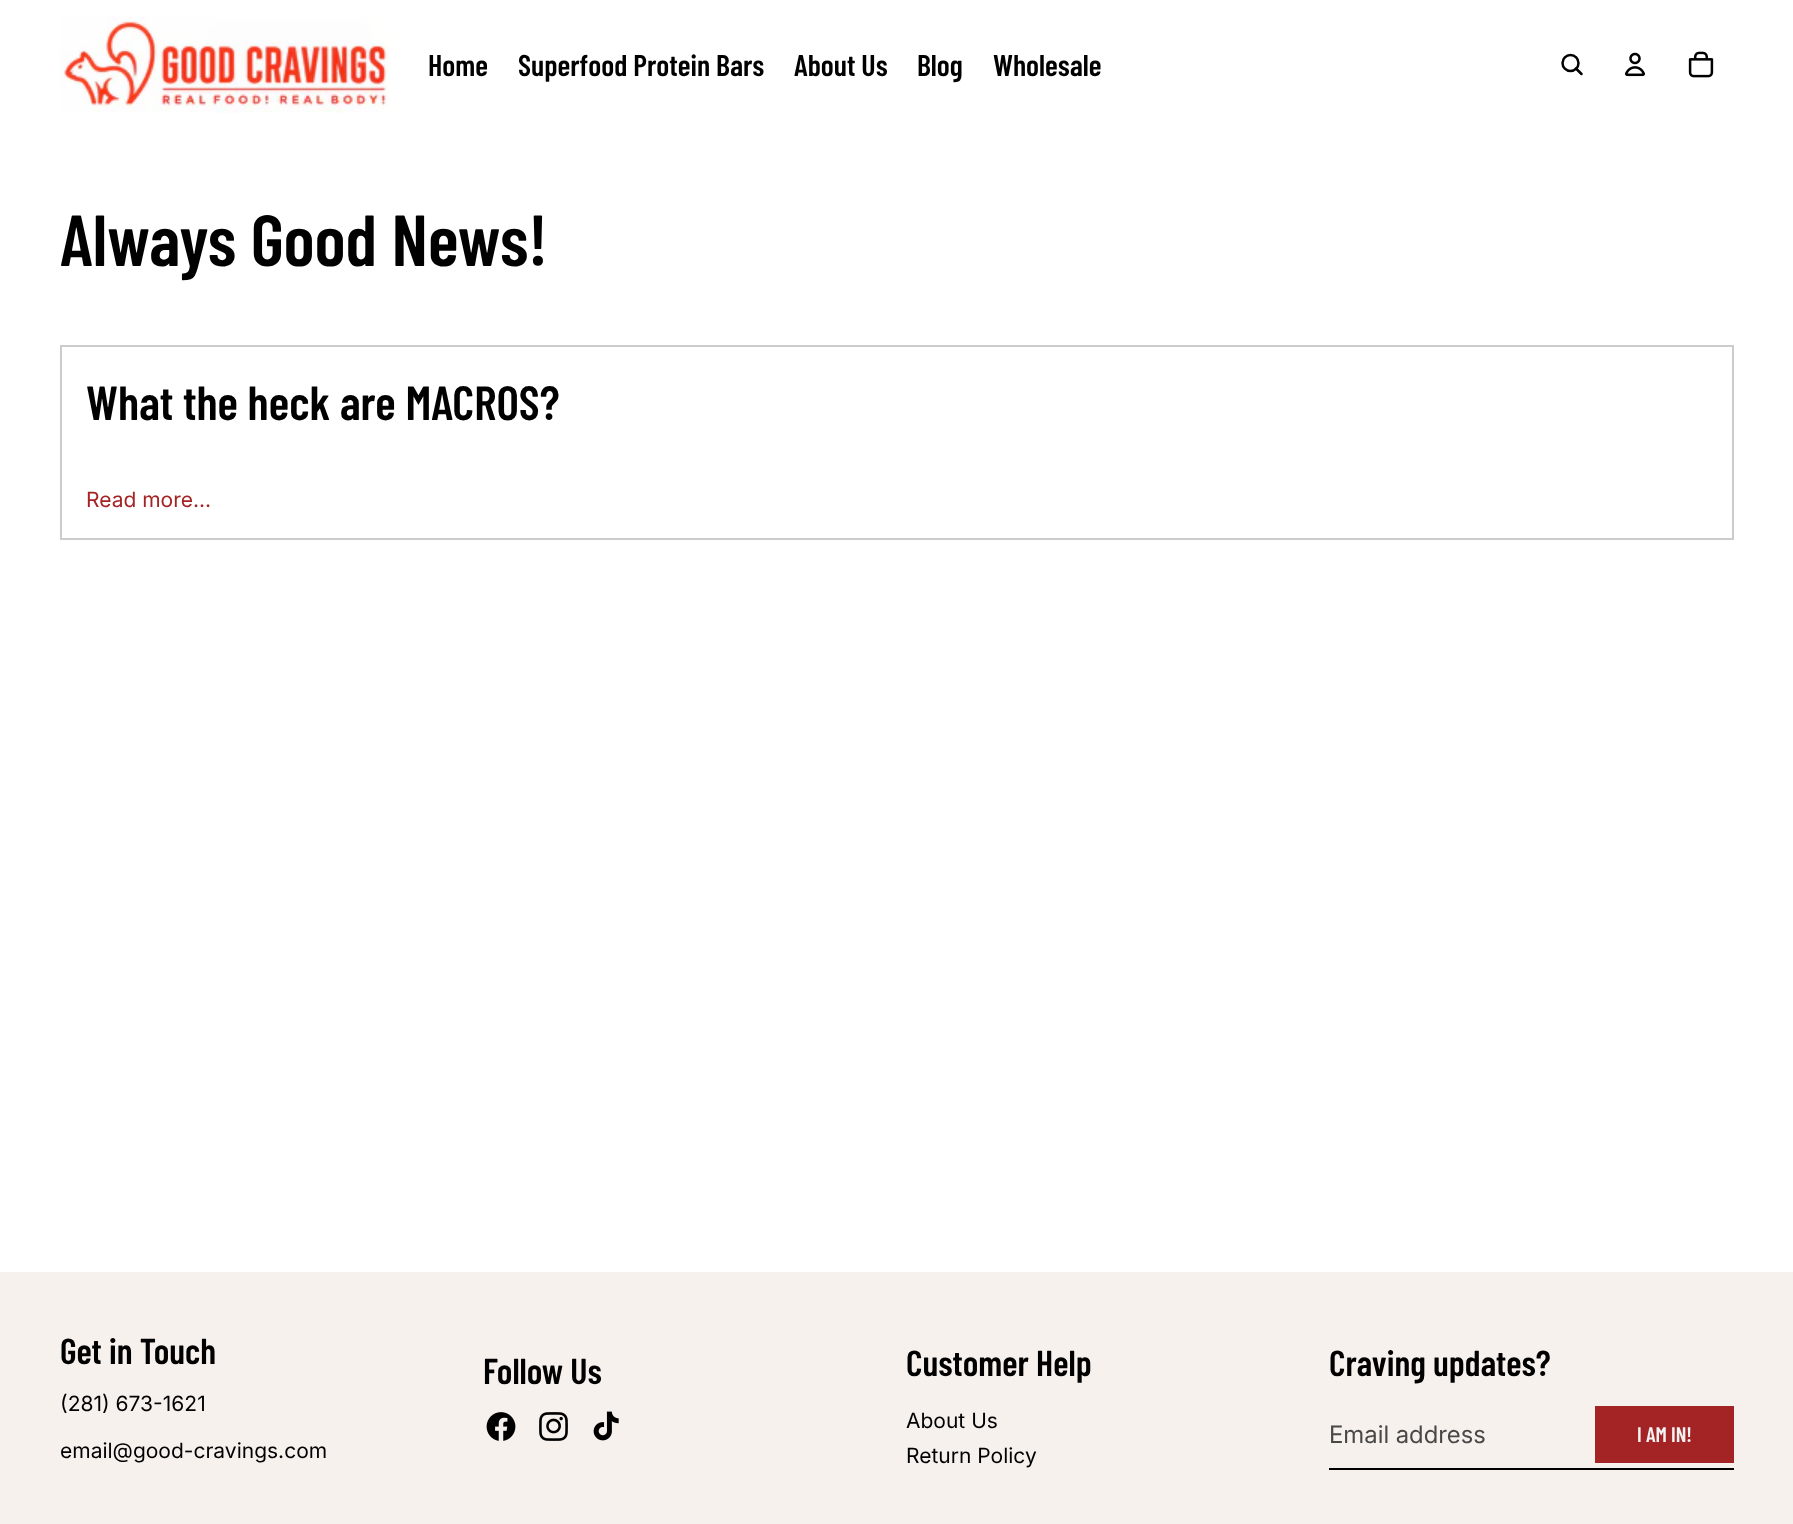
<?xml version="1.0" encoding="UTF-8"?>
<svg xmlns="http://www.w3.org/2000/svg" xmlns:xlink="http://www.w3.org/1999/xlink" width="1793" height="1524">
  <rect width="100%" height="100%" fill="#ffffff" />
  <image x="60" y="16" width="330" height="97" xlink:href="image1.png" />
  <circle cx="1570.5" cy="63" r="8" fill="none" stroke="#000000" stroke-width="2.5" />
  <path d="M 1576 68.5 l 5.5 5.5" fill="none" stroke="#000000" stroke-width="2.5" stroke-linecap="round" stroke-linejoin="round" />
  <image x="1625" y="52" width="20" height="25" xlink:href="image2.png" />
  <image x="1688" y="51" width="26" height="27" xlink:href="image3.png" />
  <rect x="61" y="346" width="1672" height="193" fill="none" stroke="#cccccc" stroke-width="2" />
  <rect y="1272" width="1793" height="252" fill="#f7f1ee" />
  <image x="486" y="1412" width="30" height="29" xlink:href="image4.png" />
  <image x="539" y="1412" width="29" height="29" xlink:href="image5.png" />
  <image x="593" y="1411" width="26" height="30" xlink:href="image6.png" />
  <rect x="1329" y="1468" width="405" height="2" fill="#000000" />
  <rect x="1595" y="1406" width="139" height="57" fill="#a42325" />
  <text x="428" y="76" style="font-family: Barlow Condensed; font-size: 30px; font-weight: 600; fill: #000000">Home</text>
  <text x="518" y="76" style="font-family: Barlow Condensed; font-size: 30px; font-weight: 600; fill: #000000">Superfood Protein Bars</text>
  <text x="794" y="76" style="font-family: Barlow Condensed; font-size: 30px; font-weight: 600; fill: #000000">About Us</text>
  <text x="917" y="76" style="font-family: Barlow Condensed; font-size: 30px; font-weight: 600; fill: #000000">Blog</text>
  <text x="993" y="76" style="font-family: Barlow Condensed; font-size: 30px; font-weight: 600; fill: #000000">Wholesale</text>
  <text x="60" y="266" style="font-family: Barlow Condensed; font-size: 72px; font-weight: 600; fill: #000000">Always Good News!</text>
  <text x="86" y="420" style="font-family: Barlow Condensed; font-size: 48px; font-weight: 600; fill: #000000">What the heck are MACROS?</text>
  <text x="86" y="507" style="font-family: Inter; font-size: 21px; fill: #a42325">Read more...</text>
  <text x="60" y="1364" style="font-family: Barlow Condensed; font-size: 36px; font-weight: 600; fill: #000000">Get in Touch</text>
  <text x="60" y="1411" style="font-family: Inter; font-size: 21px; fill: #000000">(281) 673-1621</text>
  <text x="60" y="1458" style="font-family: Inter; font-size: 21px; fill: #000000">email@good-cravings.com</text>
  <text x="483" y="1384" style="font-family: Barlow Condensed; font-size: 36px; font-weight: 600; fill: #000000">Follow Us</text>
  <text x="906" y="1376" style="font-family: Barlow Condensed; font-size: 36px; font-weight: 600; fill: #000000">Customer Help</text>
  <text x="906" y="1428" style="font-family: Inter; font-size: 21px; fill: #000000">About Us</text>
  <text x="906" y="1463" style="font-family: Inter; font-size: 21px; fill: #000000">Return Policy</text>
  <text x="1329" y="1376" style="font-family: Barlow Condensed; font-size: 36px; font-weight: 600; fill: #000000">Craving updates?</text>
  <text x="1329" y="1443" style="font-family: 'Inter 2'; font-size: 24px; fill: #4a4847">Email address</text>
  <text x="1637" y="1442" style="font-family: Barlow Condensed; font-size: 21px; font-weight: 600; fill: #f2f2f2">I AM IN!</text>
</svg>
